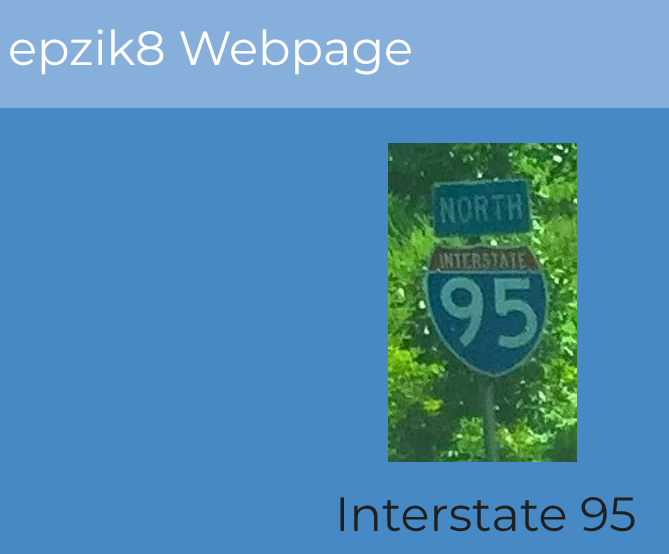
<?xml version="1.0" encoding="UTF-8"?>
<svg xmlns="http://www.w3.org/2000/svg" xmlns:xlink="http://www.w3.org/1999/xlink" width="669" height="554">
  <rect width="100%" height="100%" fill="#4689c4" />
  <rect width="669" height="108" fill="#87afdb" />
  <image x="388" y="143" width="189" height="319" xlink:href="image1.png" />
  <text x="8" y="65" style="font-family: Montserrat; font-size: 48px; fill: #ffffff">epzik8 Webpage</text>
  <text x="335" y="531" style="font-family: Montserrat; font-size: 48px; fill: #202020">Interstate 95</text>
</svg>
